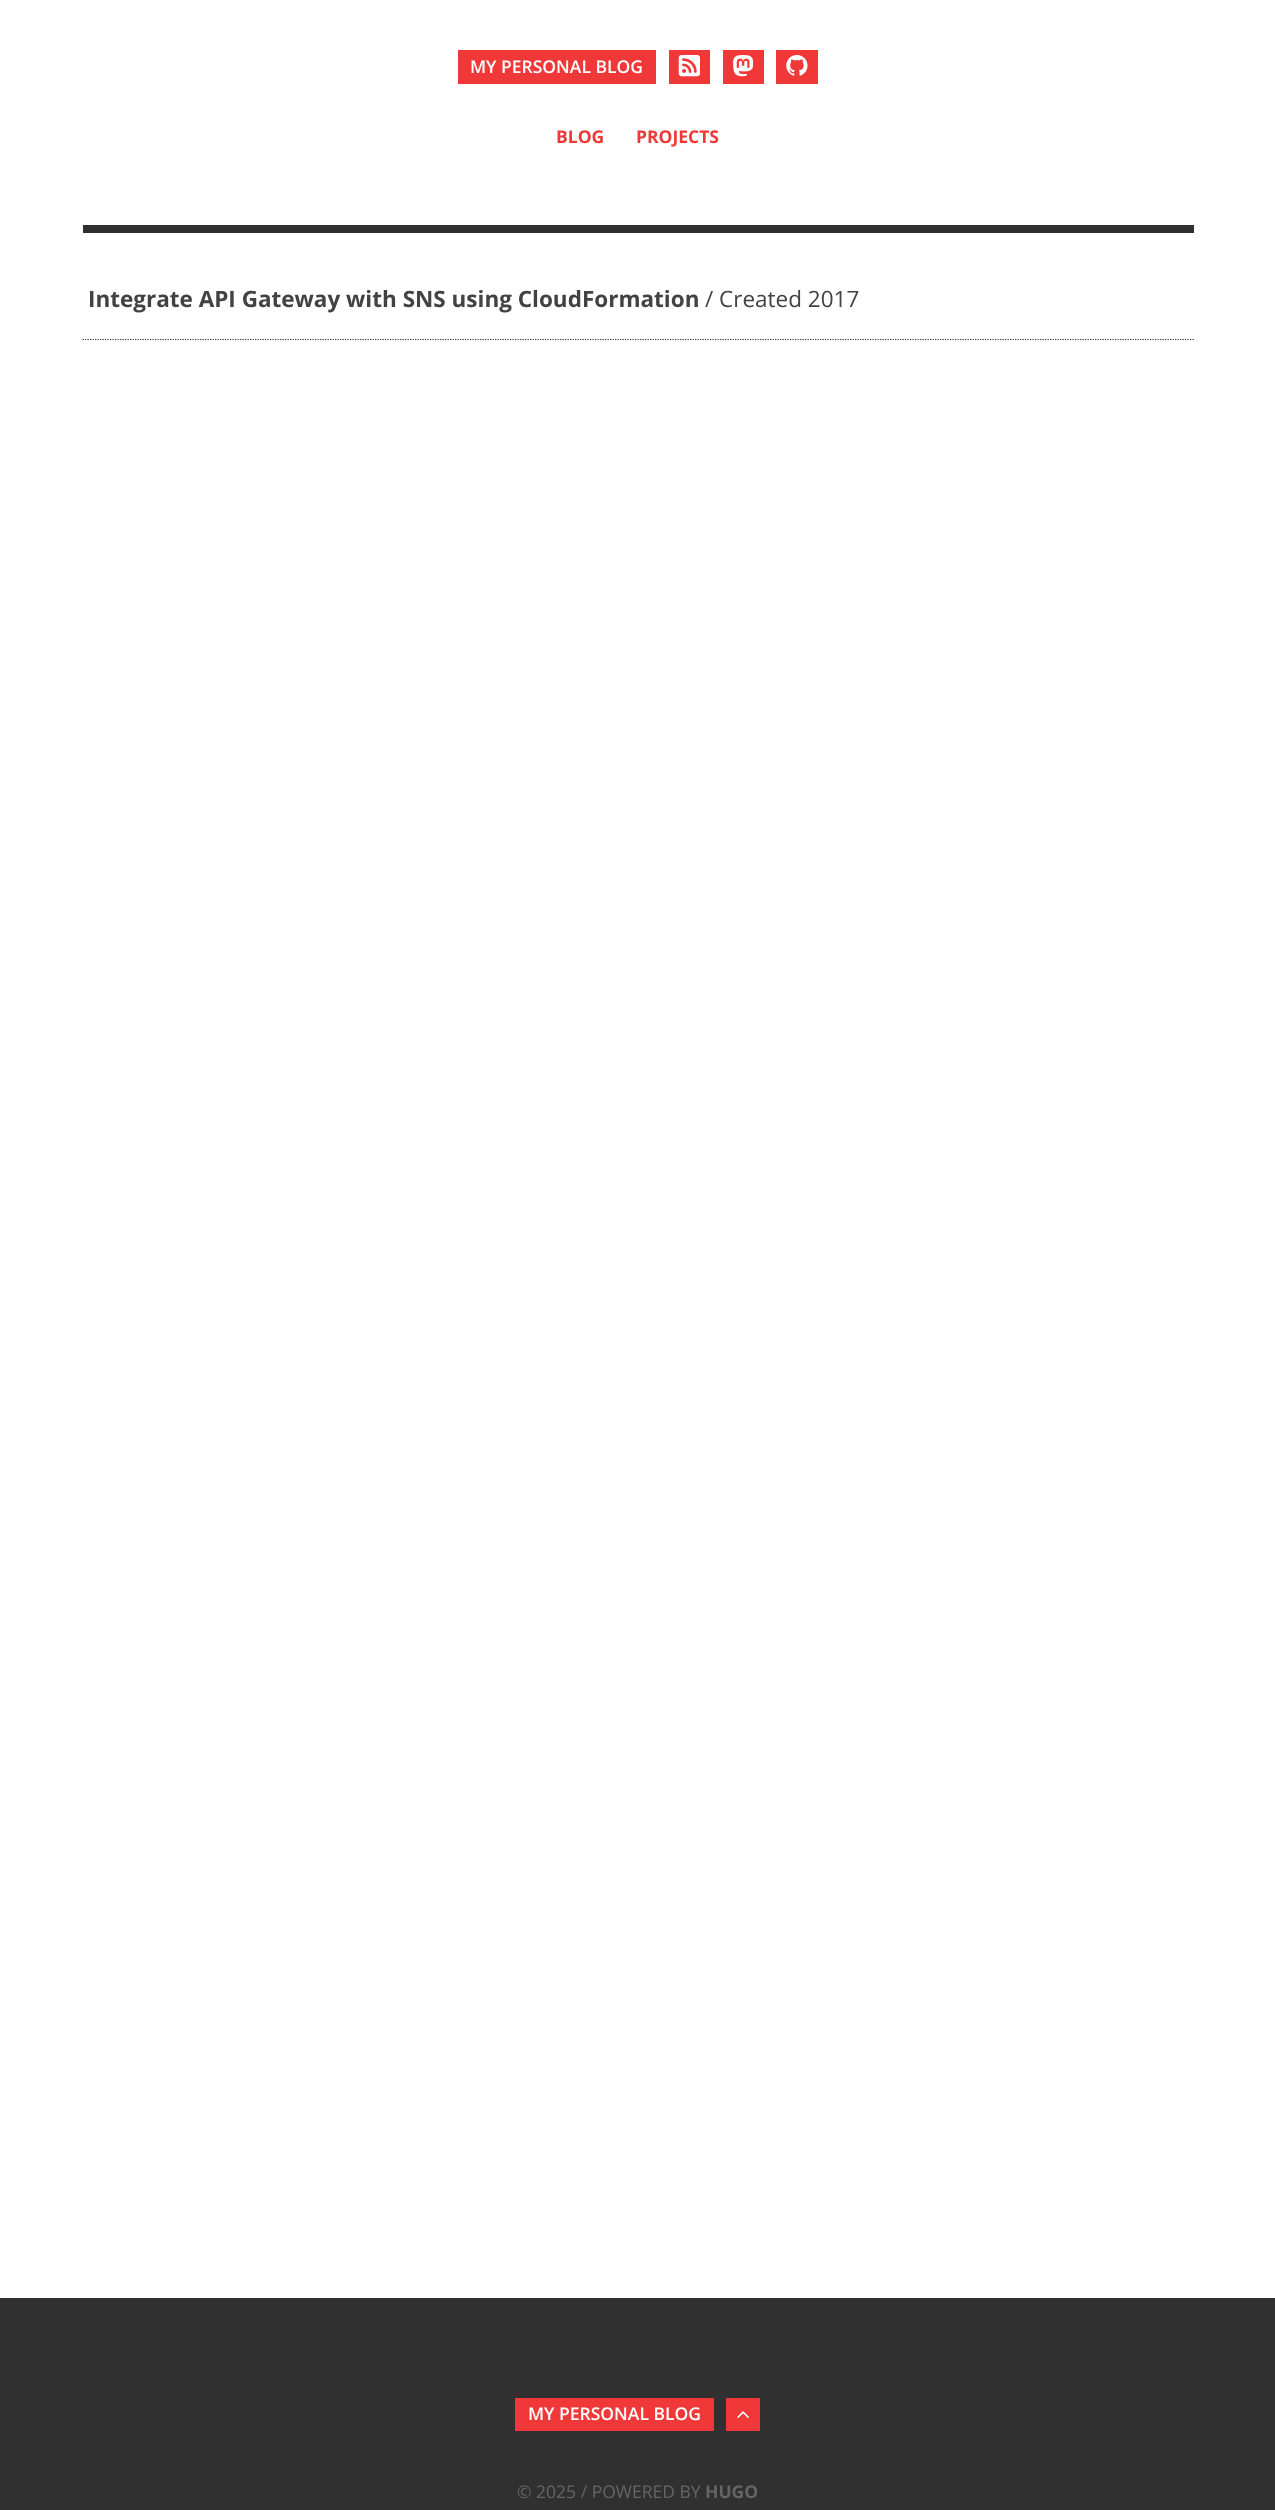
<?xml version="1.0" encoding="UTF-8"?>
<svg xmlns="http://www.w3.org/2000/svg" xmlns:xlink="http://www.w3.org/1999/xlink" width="1275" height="2510">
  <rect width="100%" height="100%" fill="#ffffff" />
  <rect x="458" y="50" width="198" height="34" fill="#f03838" />
  <rect x="669" y="50" width="41" height="34" fill="#f03838" />
  <image x="678" y="55" width="22" height="22" xlink:href="image1.png" />
  <rect x="723" y="50" width="41" height="34" fill="#f03838" />
  <image x="733" y="55" width="21" height="22" xlink:href="image2.png" />
  <rect x="776" y="50" width="42" height="34" fill="#f03838" />
  <image x="786" y="55" width="22" height="21" xlink:href="image3.png" />
  <rect x="83" y="225" width="1111" height="8" fill="#303030" />
  <path d="M 82.5 339.5 h 1111.5" fill="none" stroke="#303030" stroke-width="1.2" stroke-dasharray="1.25 1.25" />
  <rect y="2298" width="1275" height="212" fill="#303030" />
  <rect x="515" y="2398" width="199" height="33" fill="#f03838" />
  <rect x="726" y="2398" width="34" height="33" fill="#f03838" />
  <image x="737" y="2411" width="12" height="7" xlink:href="image4.png" />
  <text x="470" y="73" style="font-family: Open Sans; font-size: 17.5px; font-weight: 600; fill: #fefefe">MY PERSONAL BLOG</text>
  <text x="556" y="143" style="font-family: Open Sans; font-size: 17.5px; font-weight: bold; fill: #f03838">BLOG</text>
  <text x="636" y="143" style="font-family: Open Sans; font-size: 17.5px; font-weight: bold; fill: #f03838">PROJECTS</text>
  <text x="88" y="307" style="font-family: Open Sans; font-size: 22.5px; font-weight: bold; fill: #424242">Integrate API Gateway with SNS using CloudFormation</text>
  <text x="705" y="307" style="font-family: Open Sans; font-size: 22.5px; fill: #424242">/ Created 2017</text>
  <text x="528" y="2420" style="font-family: Open Sans; font-size: 17.5px; font-weight: 600; fill: #fefefe">MY PERSONAL BLOG</text>
  <text x="517" y="2498" style="font-family: Open Sans; font-size: 17.5px; fill: #656565">© 2025 / POWERED BY</text>
  <text x="705" y="2498" style="font-family: Open Sans; font-size: 17.5px; font-weight: bold; fill: #656565">HUGO</text>
</svg>
